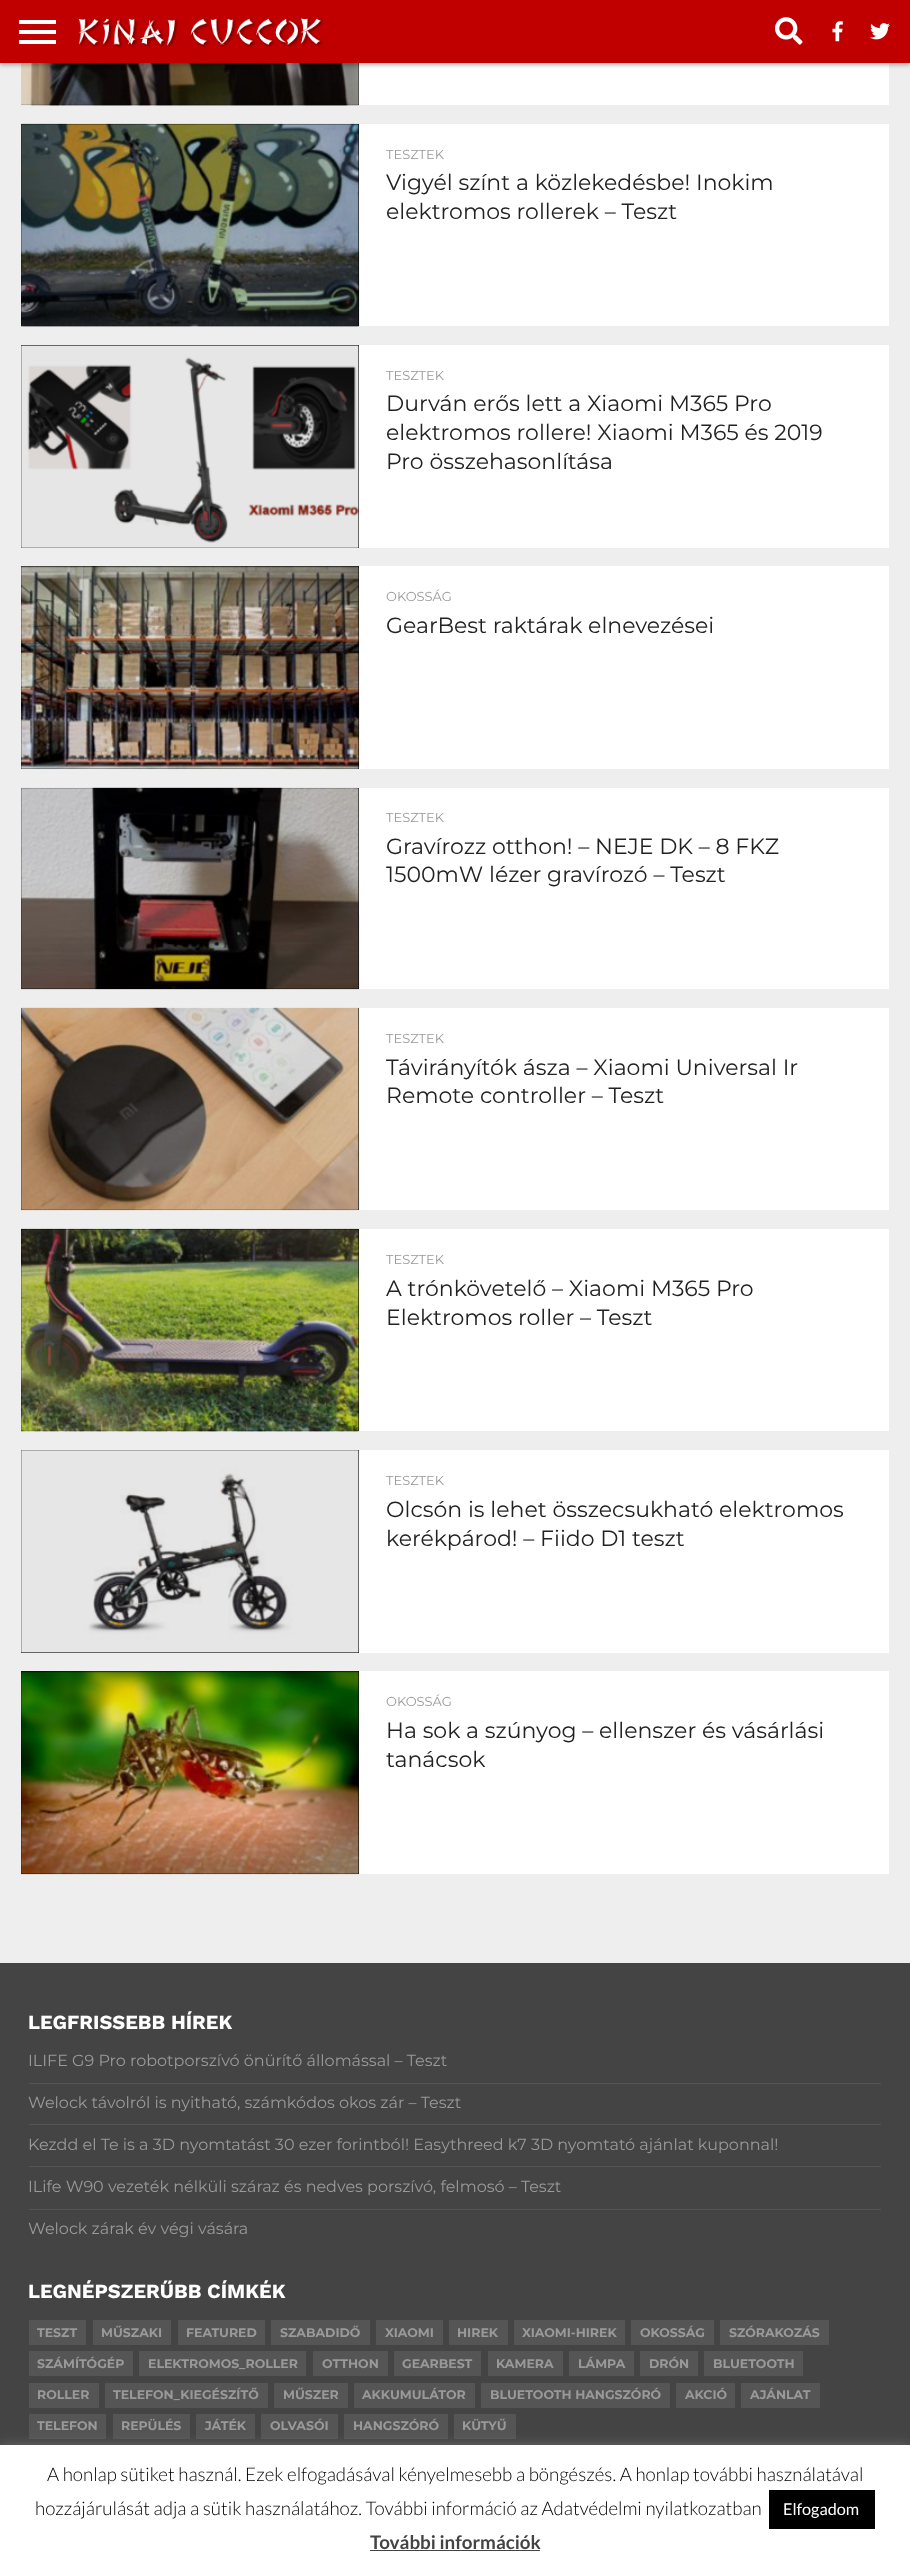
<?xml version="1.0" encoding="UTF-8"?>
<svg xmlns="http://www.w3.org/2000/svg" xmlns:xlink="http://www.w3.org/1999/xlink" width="910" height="2566">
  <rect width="100%" height="100%" fill="#eeeeee" />
  <rect x="359" y="63" width="530" height="42" fill="#ffffff" />
  <rect x="21" y="63" width="338" height="42" fill="#000000" />
  <image x="21" y="63" width="338" height="43" xlink:href="image5.png" />
  <rect y="3" width="910" height="62" fill="#000000" fill-opacity="0.3" filter="blur(2px)" />
  <rect width="910" height="63" fill="#c00000" />
  <rect x="19" y="20" width="37" height="4" fill="#ffffff" />
  <rect x="19" y="30" width="37" height="4" fill="#ffffff" />
  <rect x="19" y="40" width="37" height="4" fill="#ffffff" />
  <image x="78" y="17" width="246" height="32" xlink:href="image1.png" />
  <image x="775" y="17" width="28" height="28" xlink:href="image2.png" />
  <image x="832" y="21" width="11" height="21" xlink:href="image3.png" />
  <image x="870" y="23" width="20" height="17" xlink:href="image4.png" />
  <rect x="359" y="251" width="530" height="75" fill="#ffffff" />
  <rect x="21" y="124" width="338" height="202" fill="#000000" />
  <image x="21" y="123" width="339" height="204" xlink:href="image6.png" />
  <rect x="359" y="124" width="530" height="127" fill="#ffffff" />
  <rect x="359" y="345" width="530" height="203" fill="#ffffff" />
  <rect x="21" y="345" width="338" height="203" fill="#000000" />
  <image x="21" y="345" width="339" height="203" xlink:href="image7.png" />
  <rect x="359" y="665" width="530" height="104" fill="#ffffff" />
  <rect x="21" y="566" width="338" height="203" fill="#000000" />
  <image x="21" y="566" width="339" height="204" xlink:href="image8.png" />
  <rect x="359" y="566" width="530" height="99" fill="#ffffff" />
  <rect x="359" y="915" width="530" height="74" fill="#ffffff" />
  <rect x="21" y="788" width="338" height="201" fill="#000000" />
  <image x="21" y="787" width="339" height="203" xlink:href="image9.png" />
  <rect x="359" y="788" width="530" height="127" fill="#ffffff" />
  <rect x="359" y="1136" width="530" height="74" fill="#ffffff" />
  <rect x="21" y="1008" width="338" height="202" fill="#000000" />
  <image x="21" y="1007" width="339" height="204" xlink:href="image10.png" />
  <rect x="359" y="1008" width="530" height="128" fill="#ffffff" />
  <rect x="359" y="1358" width="530" height="73" fill="#ffffff" />
  <rect x="21" y="1229" width="338" height="202" fill="#000000" />
  <image x="21" y="1228" width="339" height="204" xlink:href="image11.png" />
  <rect x="359" y="1229" width="530" height="129" fill="#ffffff" />
  <rect x="359" y="1450" width="530" height="203" fill="#ffffff" />
  <rect x="21" y="1450" width="338" height="203" fill="#000000" />
  <image x="21" y="1450" width="338" height="203" xlink:href="image12.png" />
  <rect x="359" y="1799" width="530" height="75" fill="#ffffff" />
  <rect x="21" y="1671" width="338" height="203" fill="#000000" />
  <image x="21" y="1671" width="339" height="204" xlink:href="image13.png" />
  <rect x="359" y="1671" width="530" height="128" fill="#ffffff" />
  <rect y="1963" width="910" height="482" fill="#444444" />
  <rect x="29" y="2083" width="852" height="1" fill="#555555" />
  <rect x="29" y="2124" width="852" height="1" fill="#555555" />
  <rect x="29" y="2166" width="852" height="1" fill="#555555" />
  <rect x="29" y="2209" width="852" height="1" fill="#555555" />
  <rect x="29" y="2320" width="57" height="25" fill="#555555" />
  <rect x="93" y="2320" width="78" height="25" fill="#555555" />
  <rect x="178" y="2320" width="87" height="25" fill="#555555" />
  <rect x="271" y="2320" width="99" height="25" fill="#555555" />
  <rect x="376" y="2320" width="67" height="25" fill="#555555" />
  <rect x="449" y="2320" width="59" height="25" fill="#555555" />
  <rect x="514" y="2320" width="111" height="25" fill="#555555" />
  <rect x="631" y="2320" width="83" height="25" fill="#555555" />
  <rect x="720" y="2320" width="109" height="25" fill="#555555" />
  <rect x="29" y="2351" width="104" height="25" fill="#555555" />
  <rect x="139" y="2351" width="167" height="25" fill="#555555" />
  <rect x="313" y="2351" width="75" height="25" fill="#555555" />
  <rect x="394" y="2351" width="87" height="25" fill="#555555" />
  <rect x="488" y="2351" width="75" height="25" fill="#555555" />
  <rect x="569" y="2351" width="65" height="25" fill="#555555" />
  <rect x="640" y="2351" width="58" height="25" fill="#555555" />
  <rect x="704" y="2351" width="99" height="25" fill="#555555" />
  <rect x="29" y="2383" width="70" height="25" fill="#555555" />
  <rect x="105" y="2383" width="163" height="25" fill="#555555" />
  <rect x="274" y="2383" width="74" height="25" fill="#555555" />
  <rect x="354" y="2383" width="121" height="25" fill="#555555" />
  <rect x="481" y="2383" width="189" height="25" fill="#555555" />
  <rect x="676" y="2383" width="59" height="25" fill="#555555" />
  <rect x="741" y="2383" width="79" height="25" fill="#555555" />
  <rect x="29" y="2414" width="77" height="25" fill="#555555" />
  <rect x="113" y="2414" width="77" height="25" fill="#555555" />
  <rect x="196" y="2414" width="59" height="25" fill="#555555" />
  <rect x="261" y="2414" width="77" height="25" fill="#555555" />
  <rect x="344" y="2414" width="104" height="25" fill="#555555" />
  <rect x="454" y="2414" width="62" height="25" fill="#555555" />
  <rect y="2444" width="910" height="121" fill="#acabab" fill-opacity="0.3" filter="blur(6px)" />
  <rect y="2445" width="910" height="121" fill="#ffffff" />
  <rect x="769" y="2490" width="106" height="39" fill="#000000" />
  <rect x="370" y="2550" width="170" height="1" fill="#444444" />
  <text x="386" y="159" style="font-family: Montserrat; font-size: 13px; fill: #999999">TESZTEK</text>
  <text x="386" y="190" style="font-family: Montserrat; font-size: 22px; fill: #222222">Vigyél színt a közlekedésbe! Inokim</text>
  <text x="386" y="219" style="font-family: Montserrat; font-size: 22px; fill: #222222">elektromos rollerek – Teszt</text>
  <text x="386" y="380" style="font-family: Montserrat; font-size: 13px; fill: #999999">TESZTEK</text>
  <text x="386" y="411" style="font-family: Montserrat; font-size: 22px; fill: #222222">Durván erős lett a Xiaomi M365 Pro</text>
  <text x="386" y="440" style="font-family: Montserrat; font-size: 22px; fill: #222222">elektromos rollere! Xiaomi M365 és 2019</text>
  <text x="386" y="469" style="font-family: Montserrat; font-size: 22px; fill: #222222">Pro összehasonlítása</text>
  <text x="386" y="601" style="font-family: Montserrat; font-size: 13px; fill: #999999">OKOSSÁG</text>
  <text x="386" y="633" style="font-family: Montserrat; font-size: 22px; fill: #222222">GearBest raktárak elnevezései</text>
  <text x="386" y="822" style="font-family: Montserrat; font-size: 13px; fill: #999999">TESZTEK</text>
  <text x="386" y="854" style="font-family: Montserrat; font-size: 22px; fill: #222222">Gravírozz otthon! – NEJE DK – 8 FKZ</text>
  <text x="386" y="882" style="font-family: Montserrat; font-size: 22px; fill: #222222">1500mW lézer gravírozó – Teszt</text>
  <text x="386" y="1043" style="font-family: Montserrat; font-size: 13px; fill: #999999">TESZTEK</text>
  <text x="386" y="1075" style="font-family: Montserrat; font-size: 22px; fill: #222222">Távirányítók ásza – Xiaomi Universal Ir</text>
  <text x="386" y="1103" style="font-family: Montserrat; font-size: 22px; fill: #222222">Remote controller – Teszt</text>
  <text x="386" y="1264" style="font-family: Montserrat; font-size: 13px; fill: #999999">TESZTEK</text>
  <text x="386" y="1296" style="font-family: Montserrat; font-size: 22px; fill: #222222">A trónkövetelő – Xiaomi M365 Pro</text>
  <text x="386" y="1325" style="font-family: Montserrat; font-size: 22px; fill: #222222">Elektromos roller – Teszt</text>
  <text x="386" y="1485" style="font-family: Montserrat; font-size: 13px; fill: #999999">TESZTEK</text>
  <text x="386" y="1517" style="font-family: Montserrat; font-size: 22px; fill: #222222">Olcsón is lehet összecsukható elektromos</text>
  <text x="386" y="1546" style="font-family: Montserrat; font-size: 22px; fill: #222222">kerékpárod! – Fiido D1 teszt</text>
  <text x="386" y="1706" style="font-family: Montserrat; font-size: 13px; fill: #999999">OKOSSÁG</text>
  <text x="386" y="1738" style="font-family: Montserrat; font-size: 22px; fill: #222222">Ha sok a szúnyog – ellenszer és vásárlási</text>
  <text x="386" y="1767" style="font-family: Montserrat; font-size: 22px; fill: #222222">tanácsok</text>
  <text x="28" y="2029" style="font-family: Work Sans; font-size: 20px; font-weight: bold; fill: #ffffff">LEGFRISSEBB HÍREK</text>
  <text x="28" y="2066" style="font-family: Montserrat; font-size: 16px; fill: #999999">ILIFE G9 Pro robotporszívó önürítő állomással – Teszt</text>
  <text x="28" y="2108" style="font-family: Montserrat; font-size: 16px; fill: #999999">Welock távolról is nyitható, számkódos okos zár – Teszt</text>
  <text x="28" y="2150" style="font-family: Montserrat; font-size: 16px; fill: #999999">Kezdd el Te is a 3D nyomtatást 30 ezer forintból! Easythreed k7 3D nyomtató ajánlat kuponnal!</text>
  <text x="28" y="2192" style="font-family: Montserrat; font-size: 16px; fill: #999999">ILife W90 vezeték nélküli száraz és nedves porszívó, felmosó – Teszt</text>
  <text x="28" y="2234" style="font-family: Montserrat; font-size: 16px; fill: #999999">Welock zárak év végi vására</text>
  <text x="28" y="2298" style="font-family: Work Sans; font-size: 20px; font-weight: bold; fill: #ffffff">LEGNÉPSZERŰBB CÍMKÉK</text>
  <text x="37" y="2337" style="font-family: Montserrat; font-size: 12.5px; font-weight: bold; fill: #999999">TESZT</text>
  <text x="101" y="2337" style="font-family: Montserrat; font-size: 12.5px; font-weight: bold; fill: #999999">MŰSZAKI</text>
  <text x="186" y="2337" style="font-family: Montserrat; font-size: 12.5px; font-weight: bold; fill: #999999">FEATURED</text>
  <text x="280" y="2337" style="font-family: Montserrat; font-size: 12.5px; font-weight: bold; fill: #999999">SZABADIDŐ</text>
  <text x="385" y="2337" style="font-family: Montserrat; font-size: 12.5px; font-weight: bold; fill: #999999">XIAOMI</text>
  <text x="457" y="2337" style="font-family: Montserrat; font-size: 12.5px; font-weight: bold; fill: #999999">HIREK</text>
  <text x="522" y="2337" style="font-family: Montserrat; font-size: 12.5px; font-weight: bold; fill: #999999">XIAOMI-HIREK</text>
  <text x="640" y="2337" style="font-family: Montserrat; font-size: 12.5px; font-weight: bold; fill: #999999">OKOSSÁG</text>
  <text x="729" y="2337" style="font-family: Montserrat; font-size: 12.5px; font-weight: bold; fill: #999999">SZÓRAKOZÁS</text>
  <text x="37" y="2368" style="font-family: Montserrat; font-size: 12.5px; font-weight: bold; fill: #999999">SZÁMÍTÓGÉP</text>
  <text x="148" y="2368" style="font-family: Montserrat; font-size: 12.5px; font-weight: bold; fill: #999999">ELEKTROMOS_ROLLER</text>
  <text x="322" y="2368" style="font-family: Montserrat; font-size: 12.5px; font-weight: bold; fill: #999999">OTTHON</text>
  <text x="402" y="2368" style="font-family: Montserrat; font-size: 12.5px; font-weight: bold; fill: #999999">GEARBEST</text>
  <text x="496" y="2368" style="font-family: Montserrat; font-size: 12.5px; font-weight: bold; fill: #999999">KAMERA</text>
  <text x="578" y="2368" style="font-family: Montserrat; font-size: 12.5px; font-weight: bold; fill: #999999">LÁMPA</text>
  <text x="649" y="2368" style="font-family: Montserrat; font-size: 12.5px; font-weight: bold; fill: #999999">DRÓN</text>
  <text x="713" y="2368" style="font-family: Montserrat; font-size: 12.5px; font-weight: bold; fill: #999999">BLUETOOTH</text>
  <text x="37" y="2399" style="font-family: Montserrat; font-size: 12.5px; font-weight: bold; fill: #999999">ROLLER</text>
  <text x="113" y="2399" style="font-family: Montserrat; font-size: 12.5px; font-weight: bold; fill: #999999">TELEFON_KIEGÉSZÍTŐ</text>
  <text x="283" y="2399" style="font-family: Montserrat; font-size: 12.5px; font-weight: bold; fill: #999999">MŰSZER</text>
  <text x="362" y="2399" style="font-family: Montserrat; font-size: 12.5px; font-weight: bold; fill: #999999">AKKUMULÁTOR</text>
  <text x="490" y="2399" style="font-family: Montserrat; font-size: 12.5px; font-weight: bold; fill: #999999">BLUETOOTH HANGSZÓRÓ</text>
  <text x="685" y="2399" style="font-family: Montserrat; font-size: 12.5px; font-weight: bold; fill: #999999">AKCIÓ</text>
  <text x="750" y="2399" style="font-family: Montserrat; font-size: 12.5px; font-weight: bold; fill: #999999">AJÁNLAT</text>
  <text x="37" y="2430" style="font-family: Montserrat; font-size: 12.5px; font-weight: bold; fill: #999999">TELEFON</text>
  <text x="121" y="2430" style="font-family: Montserrat; font-size: 12.5px; font-weight: bold; fill: #999999">REPÜLÉS</text>
  <text x="205" y="2430" style="font-family: Montserrat; font-size: 12.5px; font-weight: bold; fill: #999999">JÁTÉK</text>
  <text x="270" y="2430" style="font-family: Montserrat; font-size: 12.5px; font-weight: bold; fill: #999999">OLVASÓI</text>
  <text x="353" y="2430" style="font-family: Montserrat; font-size: 12.5px; font-weight: bold; fill: #999999">HANGSZÓRÓ</text>
  <text x="462" y="2430" style="font-family: Montserrat; font-size: 12.5px; font-weight: bold; fill: #999999">KÜTYŰ</text>
  <text x="47" y="2481" style="font-family: Lato; font-size: 18.75px; font-weight: 300; fill: #000000">A honlap sütiket használ. Ezek elfogadásával kényelmesebb a böngészés. A honlap további használatával</text>
  <text x="35" y="2515" style="font-family: Lato; font-size: 18.75px; font-weight: 300; fill: #000000">hozzájárulását adja a sütik használatához. További információ az Adatvédelmi nyilatkozatban</text>
  <text x="783" y="2515" style="font-family: Lato; font-size: 16.25px; fill: #ffffff">Elfogadom</text>
  <text x="370" y="2549" style="font-family: Lato; font-size: 18.75px; font-weight: bold; fill: #444444">További információk</text>
</svg>
